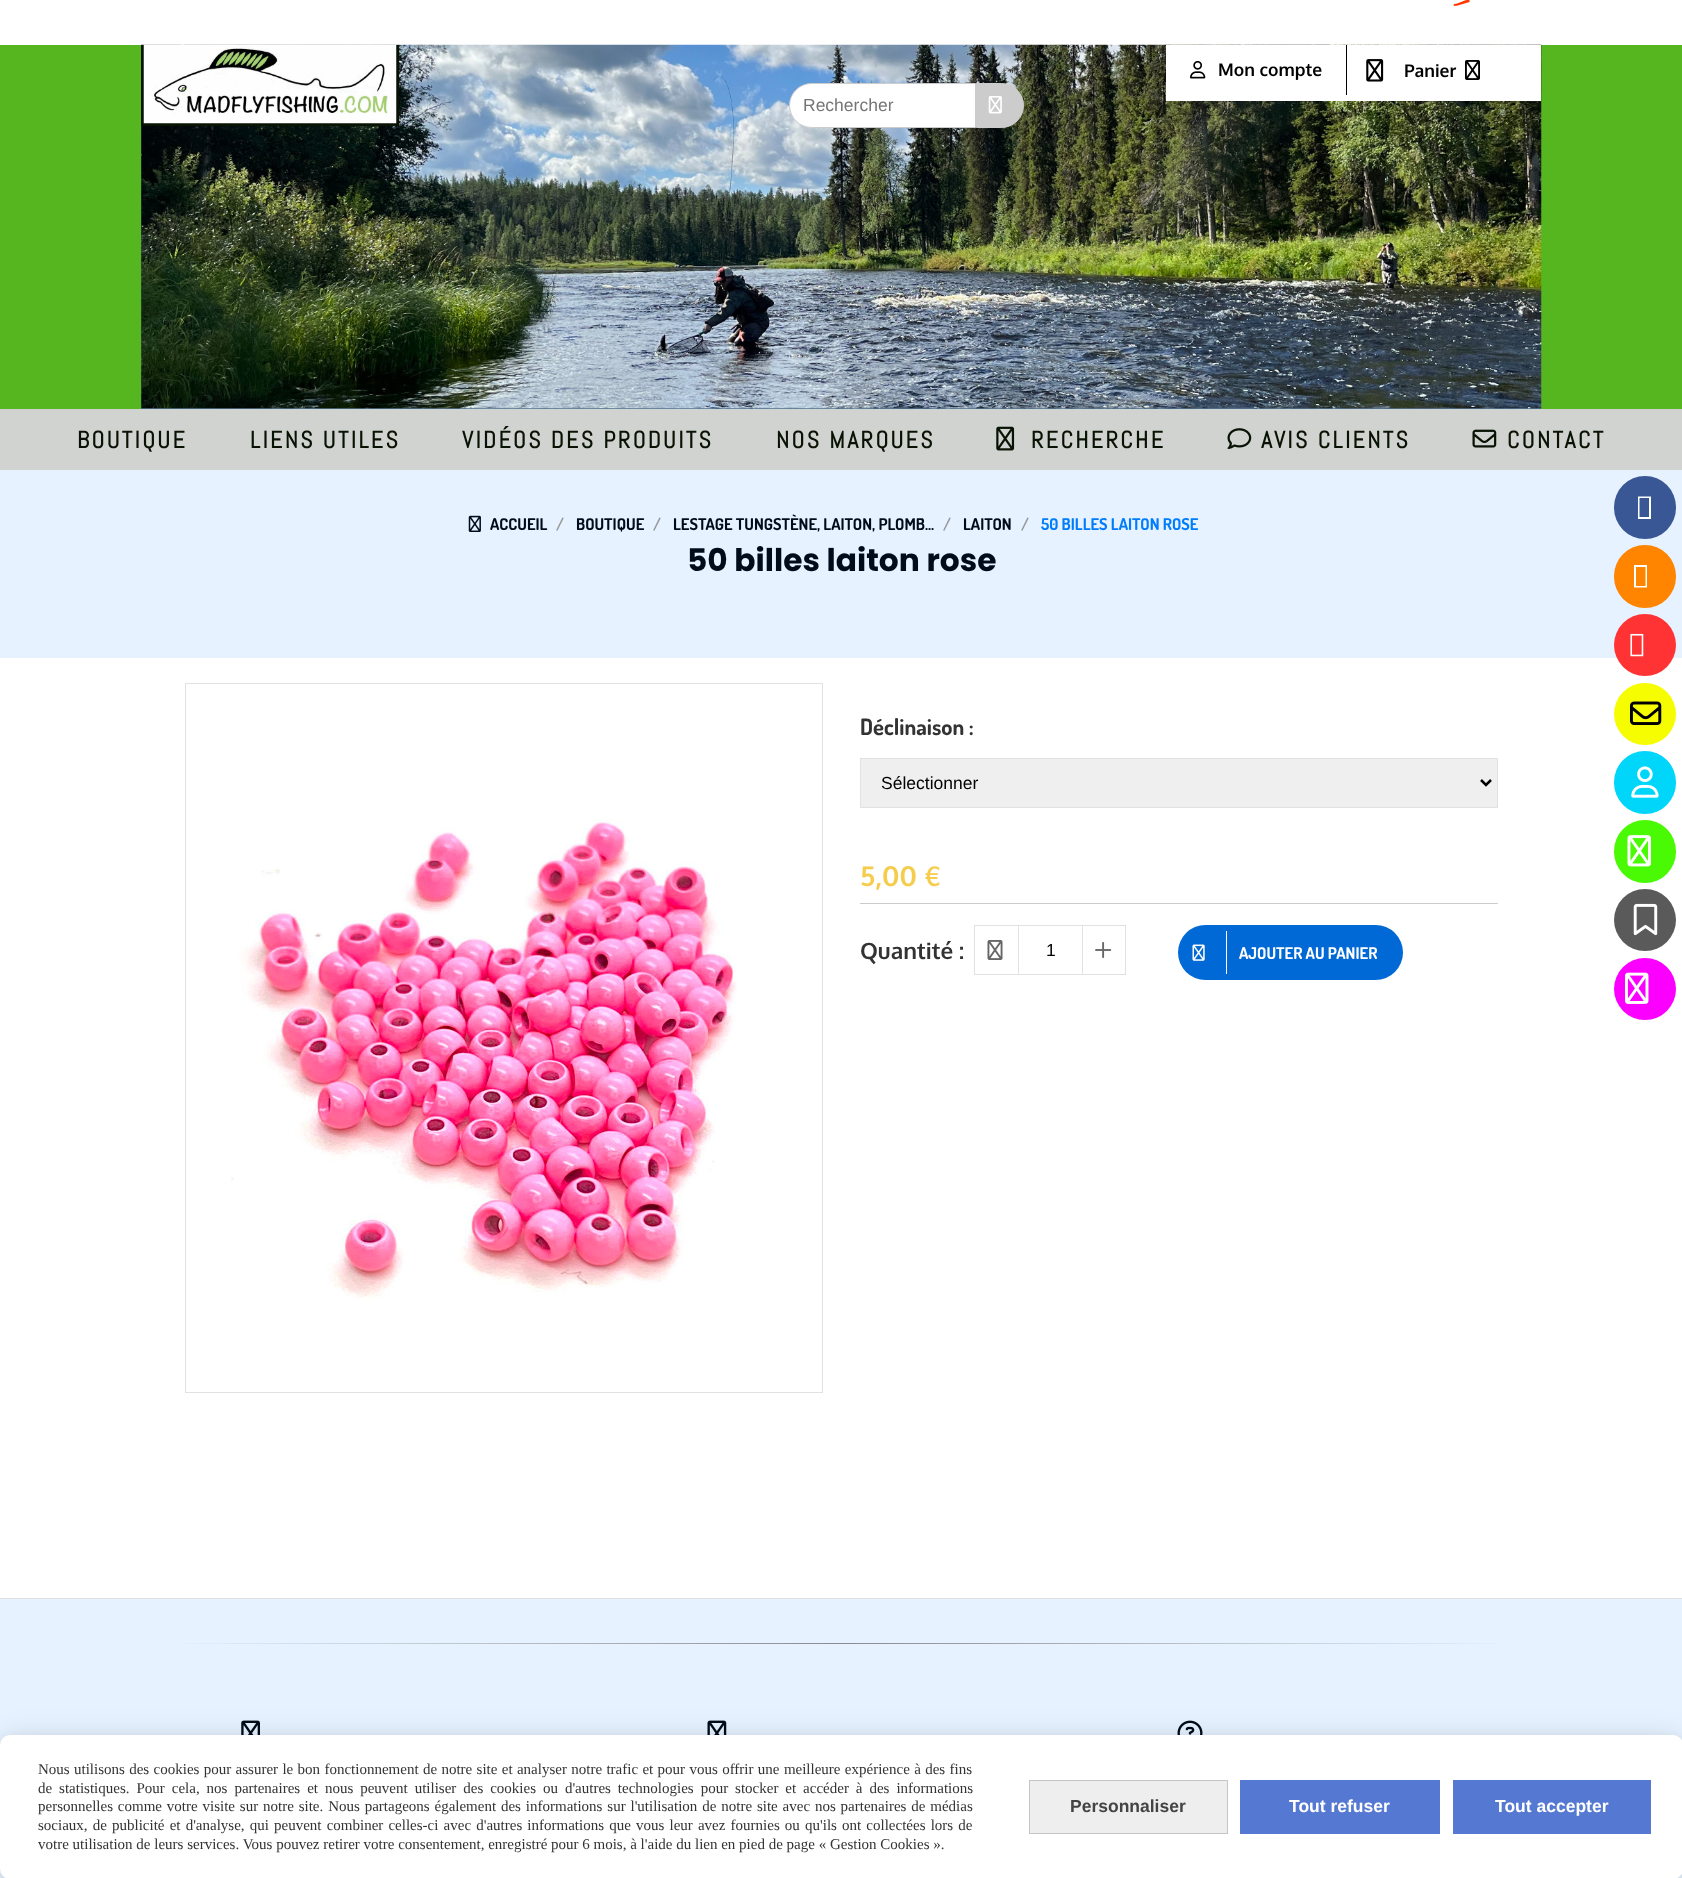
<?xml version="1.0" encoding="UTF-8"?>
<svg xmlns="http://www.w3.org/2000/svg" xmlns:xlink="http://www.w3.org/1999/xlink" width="1682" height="1878">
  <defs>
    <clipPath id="clip1"><rect y="45" width="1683" height="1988" /></clipPath>
    <linearGradient id="g1" gradientUnits="userSpaceOnUse" x1="1516" y1="1643" x2="166" y2="1643"><stop offset="0" stop-color="#e6f2ff" /><stop offset="0.5" stop-color="#8c8b8b" /><stop offset="1" stop-color="#e6f2ff" /></linearGradient>
  </defs>
  <rect width="100%" height="100%" fill="#ffffff" />
  <rect y="45" width="1682" height="364" fill="#55b620" />
  <rect x="141" y="126" width="1400" height="283" fill="#527492" />
  <image x="141" y="44" width="1401" height="365" xlink:href="image1.png" />
  <g clip-path="url(#clip1)">
    <rect x="142.5" y="41.5" width="255" height="83" fill="none" stroke="#091304" stroke-width="3" />
  </g>
  <image x="143" y="44" width="254" height="80" xlink:href="image2.png" />
  <rect x="1166" y="45" width="375" height="56" fill="#ffffff" />
  <rect x="1346" y="45" width="1" height="50" fill="#000000" />
  <image x="1190" y="60" width="16" height="19" xlink:href="image3.png" />
  <image x="1366" y="59" width="18" height="23" xlink:href="image4.png" />
  <image x="1465" y="60" width="15" height="20" xlink:href="image5.png" />
  <path d="M 811.5 83.5 h 164 v 44 h -164 c -12 0 -22 -10 -22 -22 c 0 -12 10 -22 22 -22 z" fill="#ffffff" stroke="#cccccc" />
  <path d="M 976.5 83.5 h 25 c 12 0 22 10 22 22 c 0 12 -10 22 -22 22 h -25 z" fill="#cccccc" stroke="#cccccc" />
  <image x="988" y="96" width="14" height="18" xlink:href="image6.png" />
  <rect y="409" width="1682" height="61" fill="#d1d3d1" />
  <image x="996" y="426" width="19" height="25" xlink:href="image7.png" />
  <image x="1227" y="428" width="25" height="21" xlink:href="image8.png" />
  <image x="1472" y="429" width="25" height="19" xlink:href="image9.png" />
  <rect y="470" width="1682" height="188" fill="#e6f2ff" />
  <image x="468" y="515" width="13" height="17" xlink:href="image10.png" />
  <rect x="185.5" y="683.5" width="637" height="709" fill="none" stroke="#e1e1e1" />
  <image x="231" y="819" width="506" height="481" xlink:href="image11.png" />
  <rect x="860.5" y="758.5" width="637" height="49" fill="#efefef" stroke="#e1e1e1" />
  <path d="M 1481 780 l 5 5 l 5 -5" fill="none" stroke="#000000" stroke-width="2.5" />
  <rect x="860" y="903" width="638" height="1" fill="#cccccc" />
  <rect x="974" y="925" width="44" height="1" fill="#e1e1e1" />
  <rect x="974" y="974" width="44" height="1" fill="#e1e1e1" />
  <rect x="974" y="925" width="1" height="50" fill="#e1e1e1" />
  <image x="987" y="940" width="16" height="20" xlink:href="image12.png" />
  <rect x="1018.5" y="925.5" width="64" height="49" fill="none" stroke="#e1e1e1" />
  <rect x="1083" y="925" width="43" height="1" fill="#e1e1e1" />
  <rect x="1125" y="925" width="1" height="50" fill="#e1e1e1" />
  <rect x="1083" y="974" width="43" height="1" fill="#e1e1e1" />
  <image x="1095" y="941" width="17" height="18" xlink:href="image13.png" />
  <rect x="1178" y="925" width="225" height="55" rx="27.5" fill="#0069d6" />
  <rect x="1226" y="931" width="1" height="43" fill="#ffffff" />
  <image x="1192" y="944" width="13" height="17" xlink:href="image14.png" />
  <rect y="1599" width="1682" height="279" fill="#e6f2ff" />
  <rect y="1598" width="1682" height="1" fill="#e1e1e1" />
  <rect x="181" y="1643" width="1320" height="1" fill="url(#g1)" />
  <image x="241" y="1720" width="19" height="15" xlink:href="image15.png" />
  <image x="707" y="1720" width="20" height="15" xlink:href="image16.png" />
  <image x="1177" y="1720" width="26" height="15" xlink:href="image17.png" />
  <rect x="1614" y="476" width="62" height="63" rx="31" fill="#3a5795" />
  <path d="M 1638 519 v -22.5 h 13 v 22.5 z m 1.5 -2 h 9.5 v -19 h -9.5 z" fill="#ffffff" />
  <rect x="1614" y="545" width="62" height="63" rx="31" fill="#ff8400" />
  <path d="M 1634 587.5 v -22.5 h 13 v 22.5 z m 2 -1.5 h 9.5 v -19 h -9.5 z" fill="#ffffff" />
  <circle cx="1645" cy="645" r="31" fill="#ff3333" />
  <image x="1630" y="633" width="14" height="24" xlink:href="image18.png" />
  <circle cx="1645" cy="714" r="31" fill="#f6fd01" />
  <image x="1630" y="701" width="32" height="24" xlink:href="image19.png" />
  <rect x="1614" y="751" width="62" height="63" rx="31" fill="#00d6f9" />
  <image x="1631" y="766" width="28" height="32" xlink:href="image20.png" />
  <rect x="1614" y="820" width="62" height="63" rx="31" fill="#4afa05" />
  <image x="1627" y="835" width="24" height="32" xlink:href="image21.png" />
  <circle cx="1645" cy="920" r="31" fill="#5a5a5a" />
  <image x="1633" y="903" width="25" height="33" xlink:href="image22.png" />
  <circle cx="1645" cy="989" r="31" fill="#fc00ff" />
  <image x="1625" y="972" width="24" height="32" xlink:href="image23.png" />
  <rect y="1738" width="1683" height="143" rx="10" fill="#000000" fill-opacity="0.05" filter="blur(4px)" />
  <rect y="1740" width="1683" height="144" rx="10" fill="#000000" fill-opacity="0.15" filter="blur(15px)" />
  <rect y="1735" width="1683" height="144" rx="10" fill="#ffffff" />
  <rect x="1029.5" y="1780.5" width="198" height="53" fill="#eeeeee" stroke="#c5c5c5" />
  <rect x="1240" y="1780" width="200" height="54" fill="#5579d2" />
  <rect x="1453" y="1780" width="198" height="54" fill="#5579d2" />
  <text x="1453" y="14" style="font-family: Shadows Into Light; font-size: 44px; font-weight: 300; fill: #ff3700">-</text>
  <text x="1218" y="76" style="font-family: Oxygen; font-size: 17.5px; font-weight: bold; fill: #000000">Mon compte</text>
  <text x="1404" y="77" style="font-family: Oxygen; font-size: 17.5px; font-weight: bold; fill: #000000">Panier</text>
  <text x="803" y="111" style="font-family: Liberation Sans; font-size: 17.5px; fill: #757575">Rechercher</text>
  <text x="77" y="448" style="font-family: Abel; font-size: 23.75px; font-weight: bold; letter-spacing: 2.4px; fill: #091304">BOUTIQUE</text>
  <text x="250" y="448" style="font-family: Abel; font-size: 23.75px; font-weight: bold; letter-spacing: 2.4px; fill: #091304">LIENS UTILES</text>
  <text x="462" y="448" style="font-family: Abel; font-size: 23.75px; font-weight: bold; letter-spacing: 2.4px; fill: #091304">VIDÉOS DES PRODUITS</text>
  <text x="776" y="448" style="font-family: Abel; font-size: 23.75px; font-weight: bold; letter-spacing: 2.4px; fill: #091304">NOS MARQUES</text>
  <text x="1031" y="448" style="font-family: Abel; font-size: 23.75px; font-weight: bold; letter-spacing: 2.4px; fill: #091304">RECHERCHE</text>
  <text x="1261" y="448" style="font-family: Abel; font-size: 23.75px; font-weight: bold; letter-spacing: 2.4px; fill: #091304">AVIS CLIENTS</text>
  <text x="1507" y="448" style="font-family: Abel; font-size: 23.75px; font-weight: bold; letter-spacing: 2.4px; fill: #091304">CONTACT</text>
  <text x="490" y="530" style="font-family: Dosis; font-size: 16.25px; font-weight: bold; fill: #000c19">ACCUEIL</text>
  <text x="556" y="530" style="font-family: Dosis; font-size: 16.25px; font-weight: bold; fill: #999999">/</text>
  <text x="576" y="530" style="font-family: Dosis; font-size: 16.25px; font-weight: bold; fill: #000c19">BOUTIQUE</text>
  <text x="653" y="530" style="font-family: Dosis; font-size: 16.25px; font-weight: bold; fill: #999999">/</text>
  <text x="673" y="530" style="font-family: Dosis; font-size: 16.25px; font-weight: bold; fill: #000c19">LESTAGE TUNGSTÈNE, LAITON, PLOMB...</text>
  <text x="943" y="530" style="font-family: Dosis; font-size: 16.25px; font-weight: bold; fill: #999999">/</text>
  <text x="963" y="530" style="font-family: Dosis; font-size: 16.25px; font-weight: bold; fill: #000c19">LAITON</text>
  <text x="1021" y="530" style="font-family: Dosis; font-size: 16.25px; font-weight: bold; fill: #999999">/</text>
  <text x="1041" y="530" style="font-family: Dosis; font-size: 16.25px; font-weight: bold; fill: #007cfc">50 BILLES LAITON ROSE</text>
  <text x="687" y="571" style="font-family: Poppins; font-size: 31.25px; font-weight: bold; fill: #000c19">50 billes laiton rose</text>
  <text x="860" y="735" style="font-family: Dosis; font-size: 22.5px; font-weight: bold; fill: #333333">Déclinaison :</text>
  <text x="881" y="789" style="font-family: Liberation Sans; font-size: 17.5px; fill: #000000">Sélectionner</text>
  <text x="860" y="886" style="font-family: Oxygen; font-size: 27.5px; font-weight: bold; fill: #f6cc4c">5,00 €</text>
  <text x="860" y="959" style="font-family: Oxygen; font-size: 22.5px; font-weight: bold; fill: #333333">Quantité :</text>
  <text x="1046" y="956" style="font-family: Liberation Sans; font-size: 17.5px; fill: #000000">1</text>
  <text x="1239" y="959" style="font-family: Dosis; font-size: 16.25px; font-weight: bold; fill: #ffffff">AJOUTER AU PANIER</text>
  <text x="38" y="1774" word-spacing="0.6" style="font-family: Liberation Serif; font-size: 15px; fill: #333333">Nous utilisons des cookies pour assurer le bon fonctionnement de notre site et analyser notre trafic et pour vous offrir une meilleure expérience à des fins</text>
  <text x="38" y="1793" word-spacing="3.2" style="font-family: Liberation Serif; font-size: 15px; fill: #333333">de statistiques. Pour cela, nos partenaires et nous peuvent utiliser des cookies ou d'autres technologies pour stocker et accéder à des informations</text>
  <text x="38" y="1811" word-spacing="1.1" style="font-family: Liberation Serif; font-size: 15px; fill: #333333">personnelles comme votre visite sur notre site. Nous partageons également des informations sur l'utilisation de notre site avec nos partenaires de médias</text>
  <text x="38" y="1830" word-spacing="1.4" style="font-family: Liberation Serif; font-size: 15px; fill: #333333">sociaux, de publicité et d'analyse, qui peuvent combiner celles-ci avec d'autres informations que vous leur avez fournies ou qu'ils ont collectées lors de</text>
  <text x="38" y="1849" style="font-family: Liberation Serif; font-size: 15px; fill: #333333">votre utilisation de leurs services. Vous pouvez retirer votre consentement, enregistré pour 6 mois, à l'aide du lien en pied de page « Gestion Cookies ».</text>
  <text x="1070" y="1812" style="font-family: Liberation Sans; font-size: 17.5px; font-weight: bold; fill: #444444">Personnaliser</text>
  <text x="1289" y="1812" style="font-family: Liberation Sans; font-size: 17.5px; font-weight: bold; fill: #ffffff">Tout refuser</text>
  <text x="1495" y="1812" style="font-family: Liberation Sans; font-size: 17.5px; font-weight: bold; fill: #ffffff">Tout accepter</text>
</svg>
